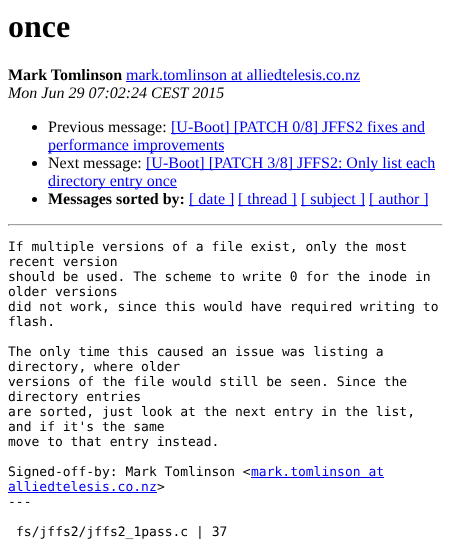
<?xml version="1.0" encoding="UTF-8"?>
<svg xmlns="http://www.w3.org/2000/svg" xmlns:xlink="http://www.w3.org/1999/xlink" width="451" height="547">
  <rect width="100%" height="100%" fill="#ffffff" />
  <rect x="126" y="81" width="234" height="1" fill="#0000ee" />
  <circle cx="34.5" cy="127.5" r="2.5" fill="#000000" />
  <rect x="171" y="133" width="254" height="1" fill="#0000ee" />
  <rect x="48" y="151" width="176" height="1" fill="#0000ee" />
  <circle cx="34.5" cy="163.5" r="2.5" fill="#000000" />
  <rect x="146" y="169" width="289" height="1" fill="#0000ee" />
  <rect x="48" y="187" width="129" height="1" fill="#0000ee" />
  <circle cx="34.5" cy="199.5" r="2.5" fill="#000000" />
  <rect x="189" y="205" width="45" height="1" fill="#0000ee" />
  <rect x="238" y="205" width="59" height="1" fill="#0000ee" />
  <rect x="301" y="205" width="64" height="1" fill="#0000ee" />
  <rect x="369" y="205" width="59" height="1" fill="#0000ee" />
  <rect x="8" y="224" width="435" height="1" fill="#9f9f9f" />
  <rect x="442" y="224" width="1" height="2" fill="#eeeeee" />
  <rect x="8" y="225" width="435" height="1" fill="#eeeeee" />
  <rect x="8" y="224" width="1" height="2" fill="#9f9f9f" />
  <rect x="251" y="477" width="133" height="1" fill="#0000ee" />
  <rect x="8" y="492" width="149" height="1" fill="#0000ee" />
  <text x="8" y="37" style="font-family: Liberation Serif; font-size: 32px; font-weight: bold; fill: #000000">once</text>
  <text x="8" y="80" style="font-family: Liberation Serif; font-size: 16px; font-weight: bold; fill: #000000">Mark Tomlinson</text>
  <text x="126" y="80" style="font-family: Liberation Serif; font-size: 16px; fill: #0000ee">mark.tomlinson at alliedtelesis.co.nz</text>
  <text x="8" y="98" style="font-family: Liberation Serif; font-size: 16px; font-style: italic; fill: #000000">Mon Jun 29 07:02:24 CEST 2015</text>
  <text x="48" y="132" style="font-family: Liberation Serif; font-size: 16px; fill: #000000">Previous message:</text>
  <text x="171" y="132" style="font-family: Liberation Serif; font-size: 16px; fill: #0000ee">[U-Boot] [PATCH 0/8] JFFS2 fixes and</text>
  <text x="48" y="150" style="font-family: Liberation Serif; font-size: 16px; fill: #0000ee">performance improvements</text>
  <text x="48" y="168" style="font-family: Liberation Serif; font-size: 16px; fill: #000000">Next message:</text>
  <text x="146" y="168" style="font-family: Liberation Serif; font-size: 16px; fill: #0000ee">[U-Boot] [PATCH 3/8] JFFS2: Only list each</text>
  <text x="48" y="186" style="font-family: Liberation Serif; font-size: 16px; fill: #0000ee">directory entry once</text>
  <text x="48" y="204" style="font-family: Liberation Serif; font-size: 16px; font-weight: bold; fill: #000000">Messages sorted by:</text>
  <text x="189" y="204" style="font-family: Liberation Serif; font-size: 16px; fill: #0000ee">[ date ]</text>
  <text x="238" y="204" style="font-family: Liberation Serif; font-size: 16px; fill: #0000ee">[ thread ]</text>
  <text x="301" y="204" style="font-family: Liberation Serif; font-size: 16px; fill: #0000ee">[ subject ]</text>
  <text x="369" y="204" style="font-family: Liberation Serif; font-size: 16px; fill: #0000ee">[ author ]</text>
  <text x="8" y="251" style="font-family: DejaVu Sans Mono; font-size: 13px; fill: #000000">If multiple versions of a file exist, only the most</text>
  <text x="8" y="266" style="font-family: DejaVu Sans Mono; font-size: 13px; fill: #000000">recent version</text>
  <text x="8" y="281" style="font-family: DejaVu Sans Mono; font-size: 13px; fill: #000000">should be used. The scheme to write 0 for the inode in</text>
  <text x="8" y="296" style="font-family: DejaVu Sans Mono; font-size: 13px; fill: #000000">older versions</text>
  <text x="8" y="311" style="font-family: DejaVu Sans Mono; font-size: 13px; fill: #000000">did not work, since this would have required writing to</text>
  <text x="8" y="326" style="font-family: DejaVu Sans Mono; font-size: 13px; fill: #000000">flash.</text>
  <text x="8" y="356" style="font-family: DejaVu Sans Mono; font-size: 13px; fill: #000000">The only time this caused an issue was listing a</text>
  <text x="8" y="371" style="font-family: DejaVu Sans Mono; font-size: 13px; fill: #000000">directory, where older</text>
  <text x="8" y="386" style="font-family: DejaVu Sans Mono; font-size: 13px; fill: #000000">versions of the file would still be seen. Since the</text>
  <text x="8" y="401" style="font-family: DejaVu Sans Mono; font-size: 13px; fill: #000000">directory entries</text>
  <text x="8" y="416" style="font-family: DejaVu Sans Mono; font-size: 13px; fill: #000000">are sorted, just look at the next entry in the list,</text>
  <text x="8" y="431" style="font-family: DejaVu Sans Mono; font-size: 13px; fill: #000000">and if it's the same</text>
  <text x="8" y="446" style="font-family: DejaVu Sans Mono; font-size: 13px; fill: #000000">move to that entry instead.</text>
  <text x="8" y="476" style="font-family: DejaVu Sans Mono; font-size: 13px; fill: #000000">Signed-off-by: Mark Tomlinson &lt;</text>
  <text x="251" y="476" style="font-family: DejaVu Sans Mono; font-size: 13px; fill: #0000ee">mark.tomlinson at</text>
  <text x="8" y="491" style="font-family: DejaVu Sans Mono; font-size: 13px; fill: #0000ee">alliedtelesis.co.nz</text>
  <text x="157" y="491" style="font-family: DejaVu Sans Mono; font-size: 13px; fill: #000000">&gt;</text>
  <text x="8" y="506" style="font-family: DejaVu Sans Mono; font-size: 13px; fill: #000000">---</text>
  <text x="16" y="536" style="font-family: DejaVu Sans Mono; font-size: 13px; fill: #000000">fs/jffs2/jffs2_1pass.c | 37</text>
</svg>
